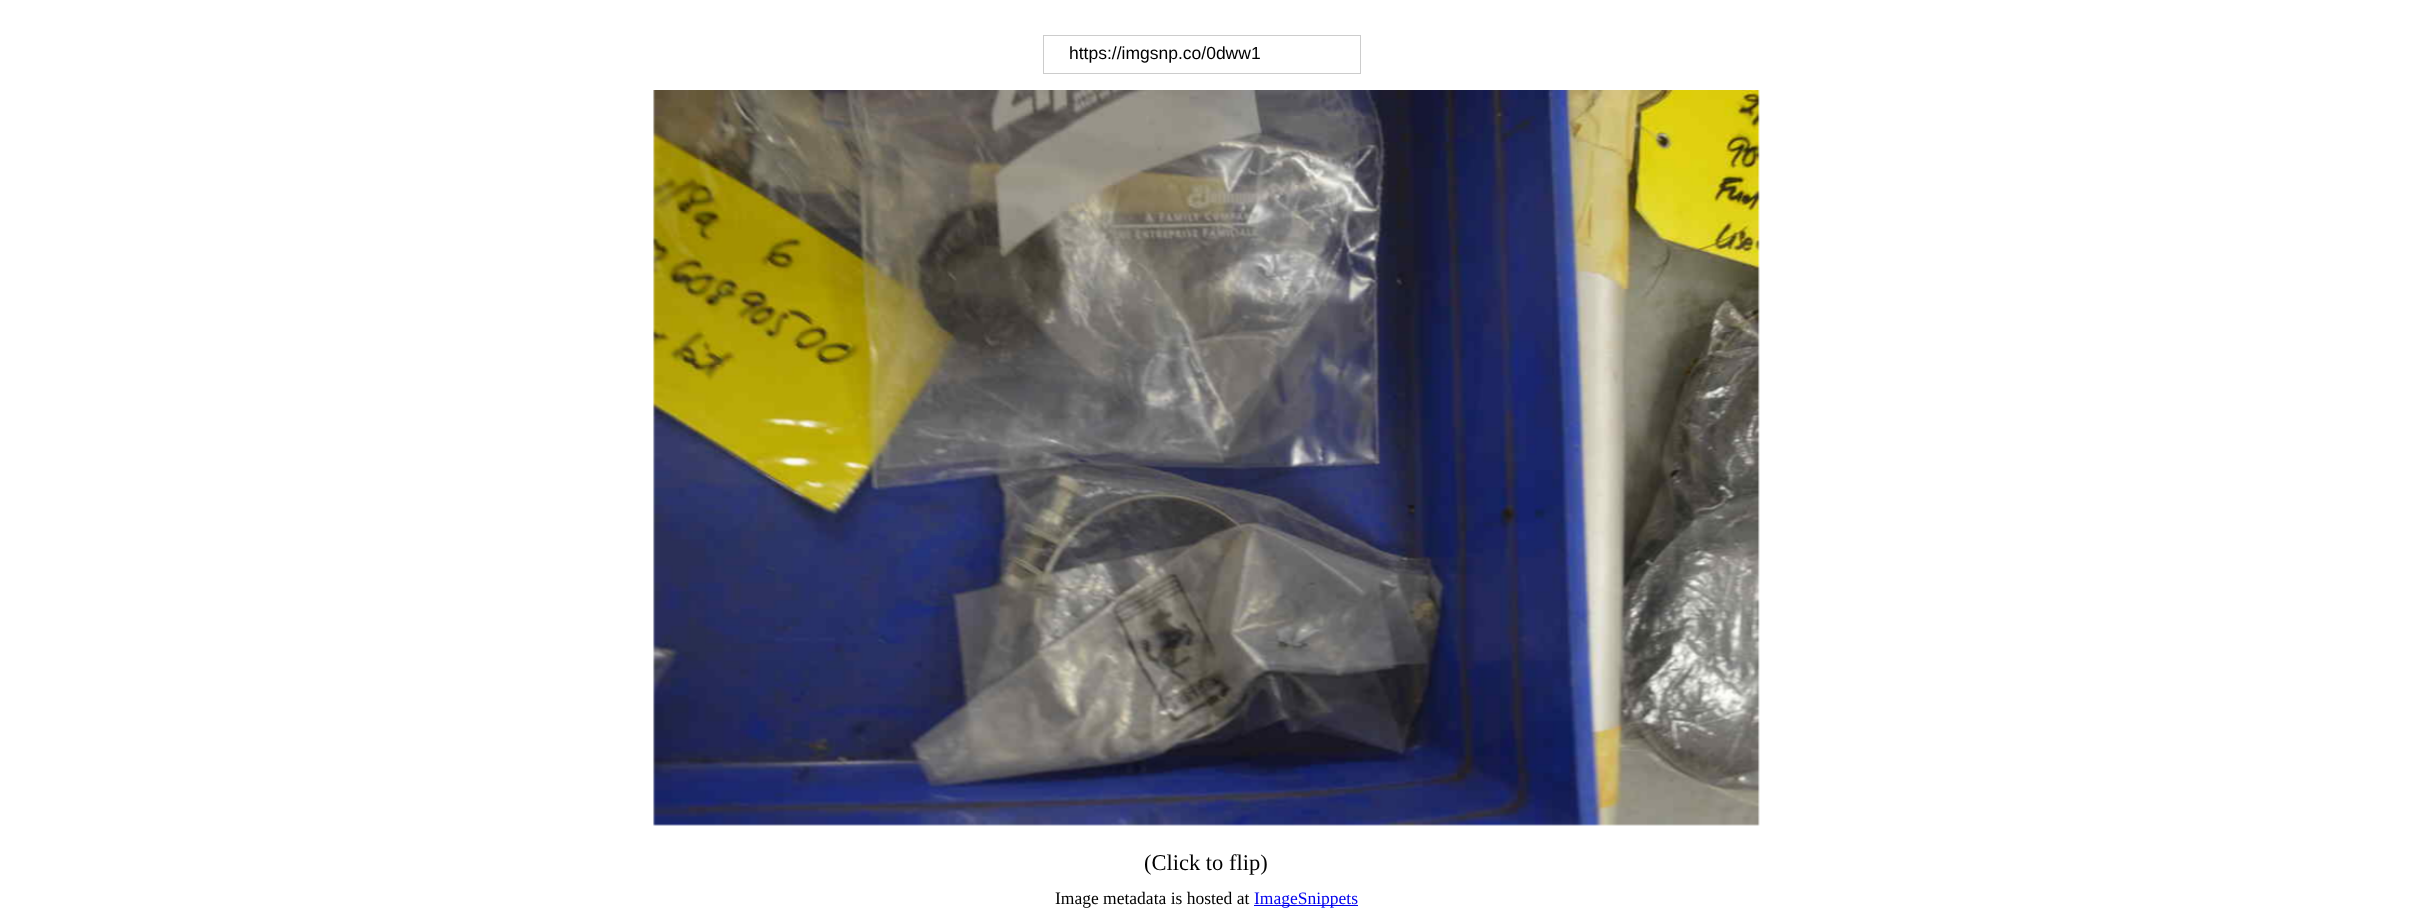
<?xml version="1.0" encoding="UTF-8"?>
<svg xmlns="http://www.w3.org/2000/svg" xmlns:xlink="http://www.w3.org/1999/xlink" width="2412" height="909">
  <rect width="100%" height="100%" fill="#ffffff" />
  <rect x="1043.5" y="35.5" width="317" height="38" fill="none" stroke="#cccccc" />
  <image x="653" y="90" width="1107" height="736" xlink:href="image1.png" />
  <rect x="1254" y="905" width="104" height="1" fill="#0000ee" />
  <text x="1069" y="59" style="font-family: Liberation Sans; font-size: 17.5px; fill: #000000">https://imgsnp.co/0dww1</text>
  <text x="1144" y="870" style="font-family: Liberation Serif; font-size: 22.5px; fill: #000000">(Click to flip)</text>
  <text x="1055" y="904" style="font-family: Liberation Serif; font-size: 17.5px; fill: #000000">Image metadata is hosted at</text>
  <text x="1254" y="904" style="font-family: Liberation Serif; font-size: 17.5px; fill: #0000ee">ImageSnippets</text>
</svg>
